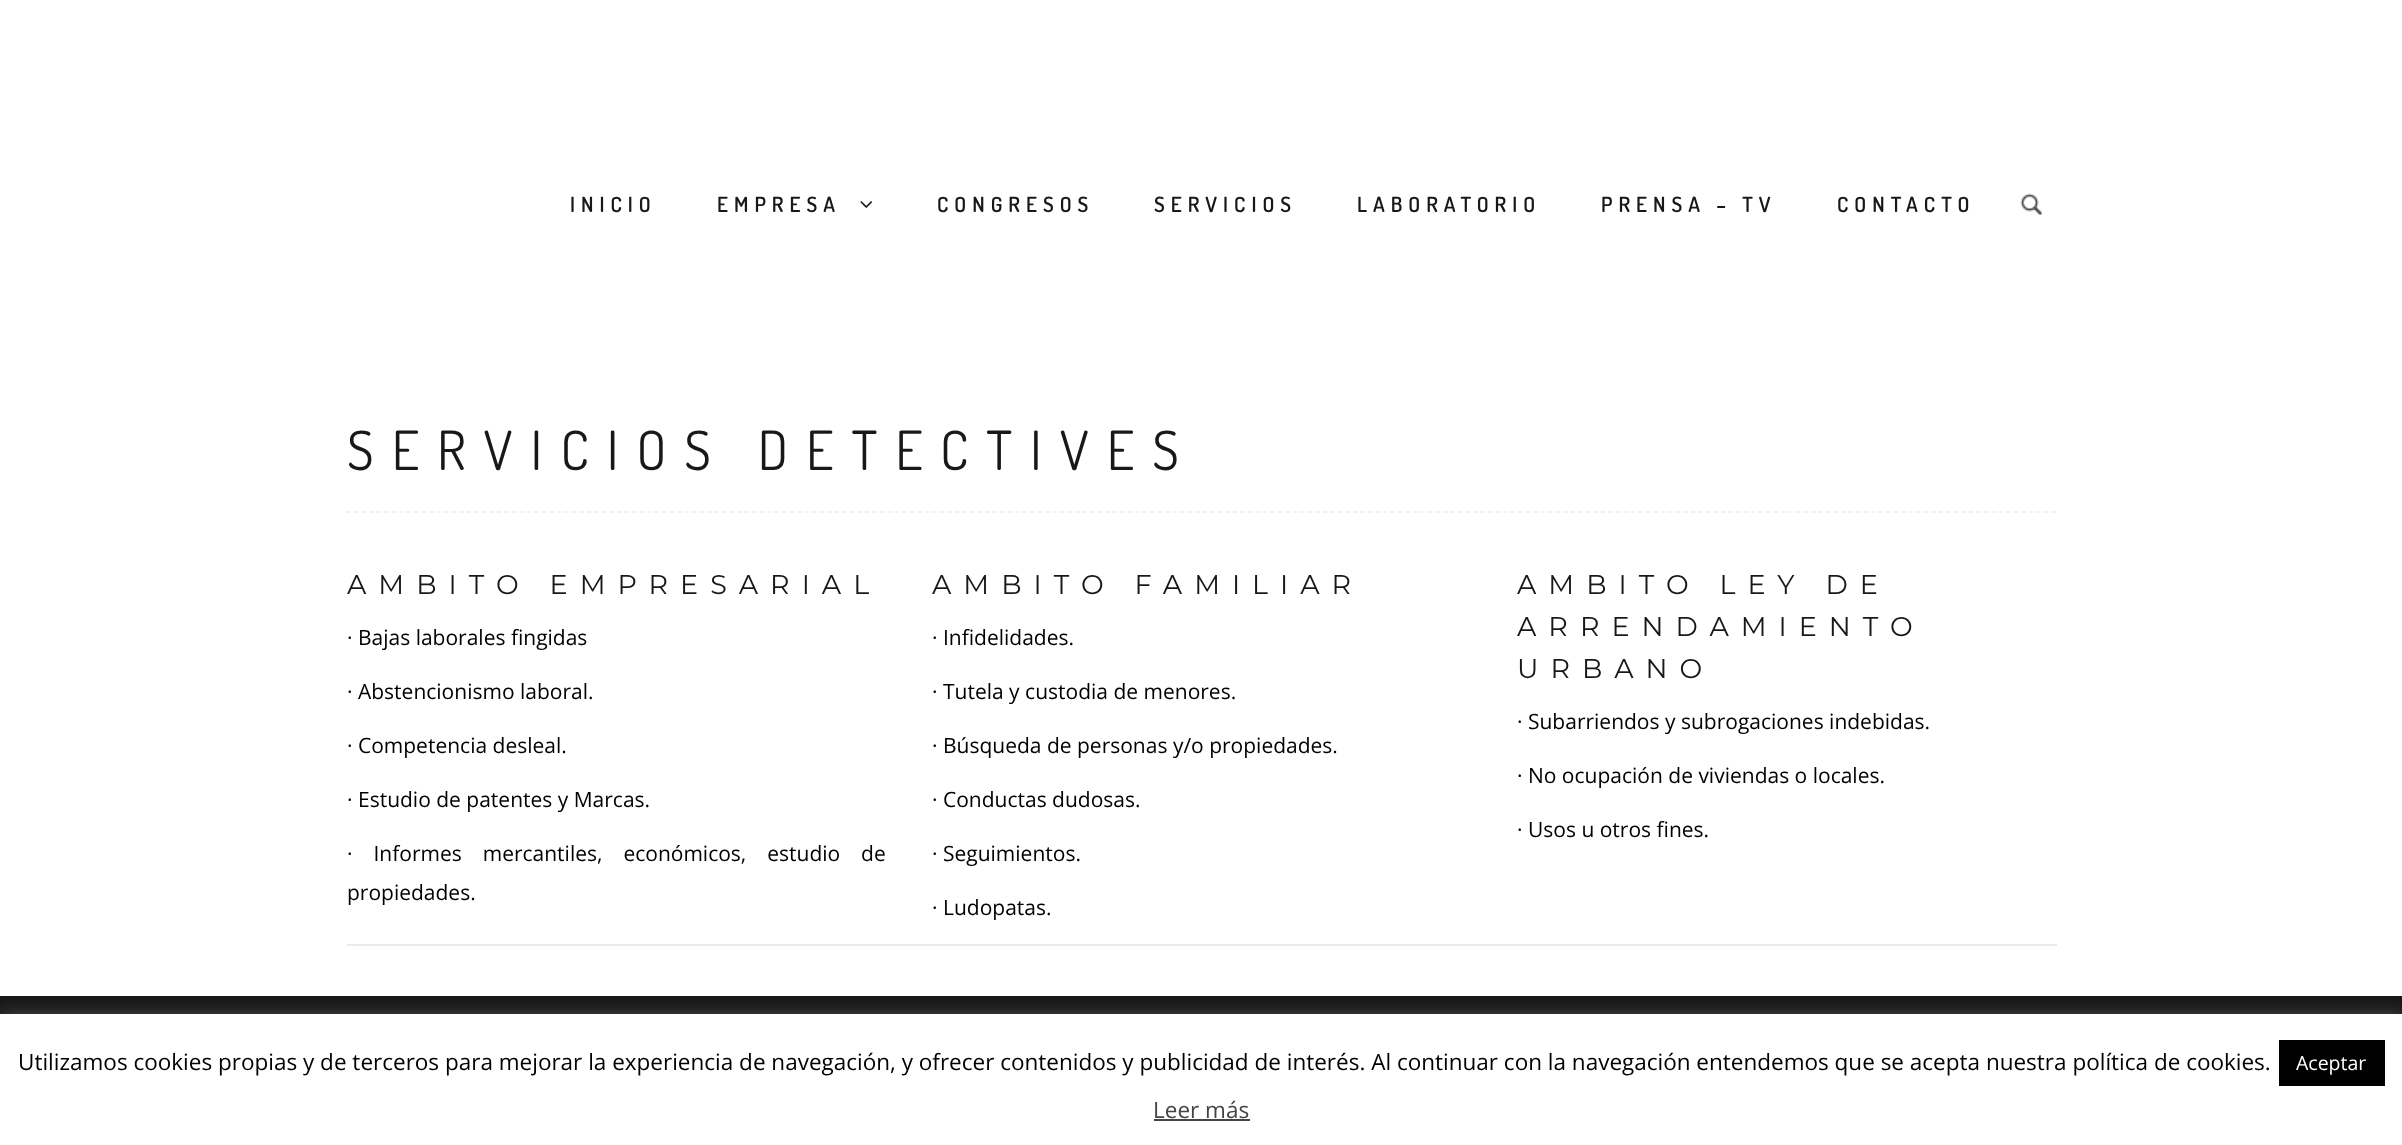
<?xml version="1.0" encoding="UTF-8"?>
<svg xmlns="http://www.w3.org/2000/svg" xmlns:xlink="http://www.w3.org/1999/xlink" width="2402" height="1145">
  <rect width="100%" height="100%" fill="#ffffff" />
  <image x="860" y="201" width="12" height="7" xlink:href="image1.png" />
  <image x="2020" y="193" width="22" height="22" xlink:href="image2.png" />
  <path d="M 346.5 512 h 1710" fill="none" stroke="#ebebeb" stroke-width="1.5" stroke-dasharray="4.5 3.01" />
  <rect x="347" y="944" width="1710" height="2" fill="#ebebeb" />
  <rect y="996" width="2402" height="18" fill="#181818" />
  <rect y="1013" width="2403" height="132" fill="#acabab" fill-opacity="0.3" filter="blur(7.5px)" />
  <rect y="1014" width="2402" height="131" fill="#ffffff" />
  <rect x="2279" y="1040" width="106" height="46" fill="#000000" />
  <rect x="1154" y="1119" width="96" height="2" fill="#444444" />
  <text x="570" y="212" style="font-family: Dosis; font-size: 21px; font-weight: 600; letter-spacing: 6px; fill: #181818">INICIO</text>
  <text x="717" y="212" style="font-family: Dosis; font-size: 21px; font-weight: 600; letter-spacing: 6px; fill: #181818">EMPRESA</text>
  <text x="937" y="212" style="font-family: Dosis; font-size: 21px; font-weight: 600; letter-spacing: 6px; fill: #181818">CONGRESOS</text>
  <text x="1154" y="212" style="font-family: Dosis; font-size: 21px; font-weight: 600; letter-spacing: 6px; fill: #181818">SERVICIOS</text>
  <text x="1357" y="212" style="font-family: Dosis; font-size: 21px; font-weight: 600; letter-spacing: 6px; fill: #181818">LABORATORIO</text>
  <text x="1601" y="212" style="font-family: Dosis; font-size: 21px; font-weight: 600; letter-spacing: 6px; fill: #181818">PRENSA – TV</text>
  <text x="1837" y="212" style="font-family: Dosis; font-size: 21px; font-weight: 600; letter-spacing: 6px; fill: #181818">CONTACTO</text>
  <text x="347" y="470" style="font-family: Dosis; font-size: 54px; letter-spacing: 18px; fill: #181818">SERVICIOS DETECTIVES</text>
  <text x="347" y="594" style="font-family: Montserrat; font-size: 27px; letter-spacing: 12px; fill: #181818">AMBITO EMPRESARIAL</text>
  <text x="347" y="645" style="font-family: Open Sans; font-size: 21px; fill: #000000">· Bajas laborales fingidas</text>
  <text x="347" y="699" style="font-family: Open Sans; font-size: 21px; fill: #000000">· Abstencionismo laboral.</text>
  <text x="347" y="753" style="font-family: Open Sans; font-size: 21px; fill: #000000">· Competencia desleal.</text>
  <text x="347" y="807" style="font-family: Open Sans; font-size: 21px; fill: #000000">· Estudio de patentes y Marcas.</text>
  <text x="347" y="861" word-spacing="15.5" style="font-family: Open Sans; font-size: 21px; fill: #000000">· Informes mercantiles, económicos, estudio de</text>
  <text x="347" y="900" style="font-family: Open Sans; font-size: 21px; fill: #000000">propiedades.</text>
  <text x="932" y="594" style="font-family: Montserrat; font-size: 27px; letter-spacing: 12px; fill: #181818">AMBITO FAMILIAR</text>
  <text x="932" y="645" style="font-family: Open Sans; font-size: 21px; fill: #000000">· Infidelidades.</text>
  <text x="932" y="699" style="font-family: Open Sans; font-size: 21px; fill: #000000">· Tutela y custodia de menores.</text>
  <text x="932" y="753" style="font-family: Open Sans; font-size: 21px; fill: #000000">· Búsqueda de personas y/o propiedades.</text>
  <text x="932" y="807" style="font-family: Open Sans; font-size: 21px; fill: #000000">· Conductas dudosas.</text>
  <text x="932" y="861" style="font-family: Open Sans; font-size: 21px; fill: #000000">· Seguimientos.</text>
  <text x="932" y="915" style="font-family: Open Sans; font-size: 21px; fill: #000000">· Ludopatas.</text>
  <text x="1517" y="594" style="font-family: Montserrat; font-size: 27px; letter-spacing: 12px; fill: #181818">AMBITO LEY DE</text>
  <text x="1517" y="636" style="font-family: Montserrat; font-size: 27px; letter-spacing: 12px; fill: #181818">ARRENDAMIENTO</text>
  <text x="1517" y="678" style="font-family: Montserrat; font-size: 27px; letter-spacing: 12px; fill: #181818">URBANO</text>
  <text x="1517" y="729" style="font-family: Open Sans; font-size: 21px; fill: #000000">· Subarriendos y subrogaciones indebidas.</text>
  <text x="1517" y="783" style="font-family: Open Sans; font-size: 21px; fill: #000000">· No ocupación de viviendas o locales.</text>
  <text x="1517" y="837" style="font-family: Open Sans; font-size: 21px; fill: #000000">· Usos u otros fines.</text>
  <text x="18" y="1070" style="font-family: Open Sans; font-size: 22.5px; fill: #000000">Utilizamos cookies propias y de terceros para mejorar la experiencia de navegación, y ofrecer contenidos y publicidad de interés. Al continuar con la navegación entendemos que se acepta nuestra política de cookies.</text>
  <text x="2296" y="1070" style="font-family: Open Sans; font-size: 19.5px; fill: #ffffff">Aceptar</text>
  <text x="1153" y="1118" style="font-family: Open Sans; font-size: 22.5px; fill: #444444">Leer más</text>
</svg>
